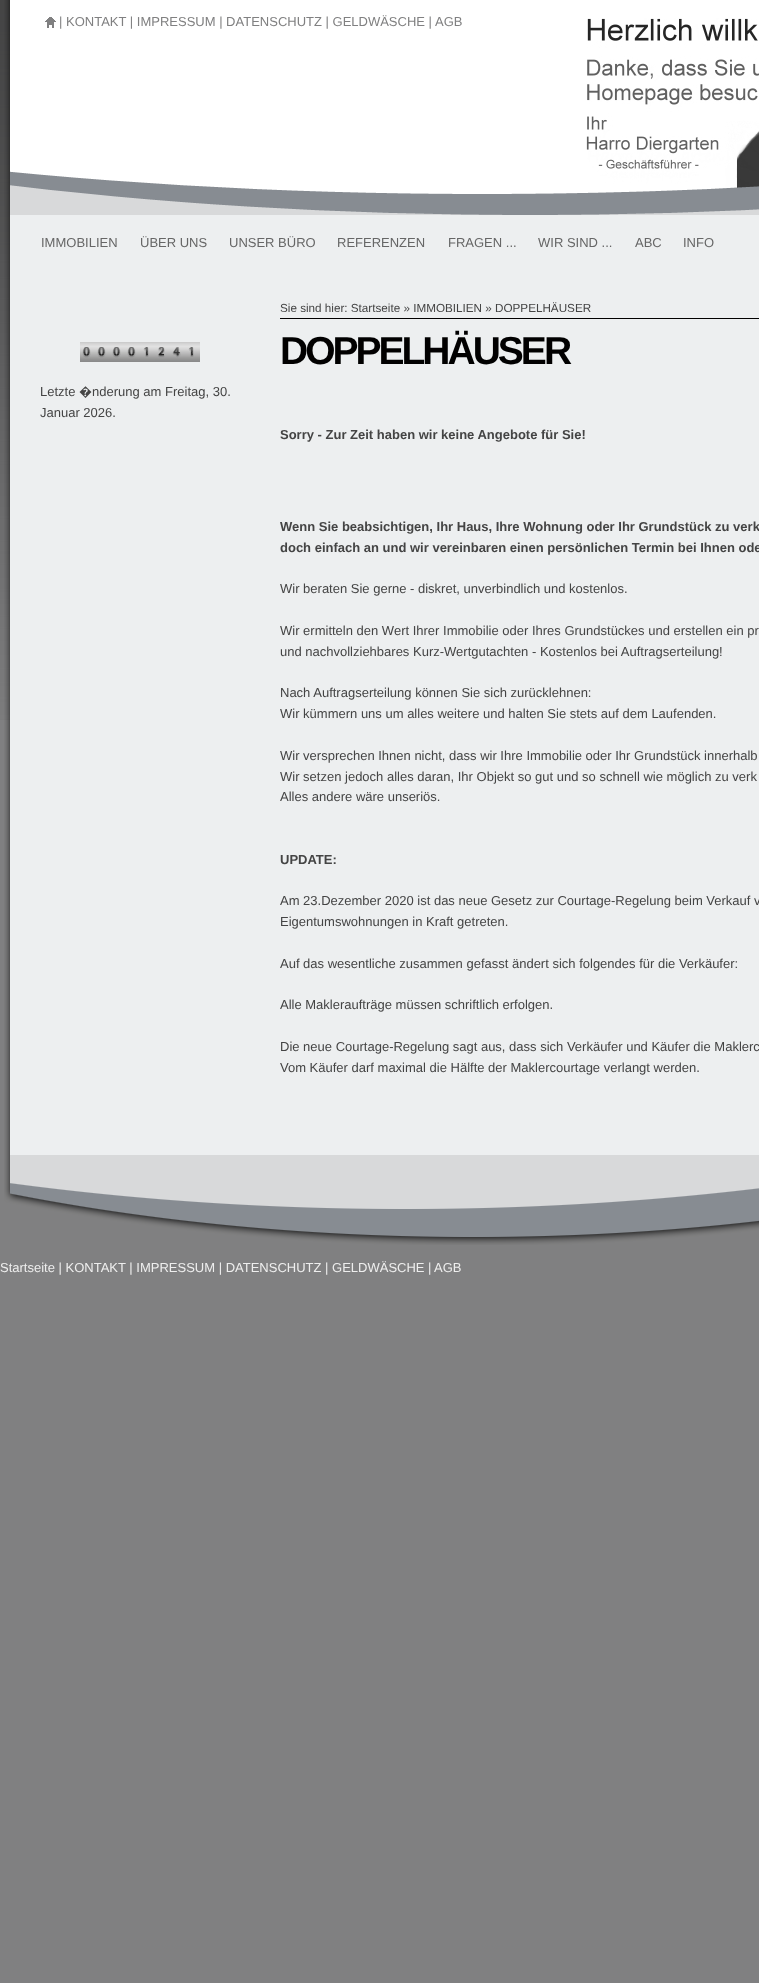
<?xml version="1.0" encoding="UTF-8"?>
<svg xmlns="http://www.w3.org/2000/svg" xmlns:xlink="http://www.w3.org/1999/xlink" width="759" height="1983">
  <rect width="100%" height="100%" fill="#808081" />
  <image x="0" y="0" width="10" height="720" xlink:href="image1.png" />
  <image x="4" y="0" width="6" height="1155" xlink:href="image2.png" />
  <rect x="10" width="749" height="194" fill="#ffffff" />
  <image x="45" y="17" width="11" height="11" xlink:href="image3.png" />
  <image x="586" y="18" width="173" height="175" xlink:href="image4.png" />
  <image x="10" y="171" width="749" height="44" xlink:href="image5.png" />
  <rect x="10" y="215" width="749" height="940" fill="#edeff0" />
  <image x="80" y="342" width="15" height="20" xlink:href="image6.png" />
  <image x="95" y="342" width="15" height="20" xlink:href="image6.png" />
  <image x="110" y="342" width="15" height="20" xlink:href="image6.png" />
  <image x="125" y="342" width="15" height="20" xlink:href="image6.png" />
  <image x="140" y="342" width="15" height="20" xlink:href="image7.png" />
  <image x="155" y="342" width="15" height="20" xlink:href="image8.png" />
  <image x="170" y="342" width="15" height="20" xlink:href="image9.png" />
  <image x="185" y="342" width="15" height="20" xlink:href="image7.png" />
  <rect x="280" y="318" width="479" height="1" fill="#010000" />
  <image x="4" y="1155" width="755" height="90" xlink:href="image10.png" />
  <text x="59" y="26" style="font-family: Liberation Sans; font-size: 13px; fill: #808081">| KONTAKT | IMPRESSUM | DATENSCHUTZ | GELDWÄSCHE |</text>
  <text x="435" y="26" style="font-family: Liberation Sans; font-size: 13px; fill: #808081">AGB</text>
  <text x="41" y="247" style="font-family: Liberation Sans; font-size: 13px; fill: #666666">IMMOBILIEN</text>
  <text x="140" y="247" style="font-family: Liberation Sans; font-size: 13px; fill: #666666">ÜBER UNS</text>
  <text x="229" y="247" style="font-family: Liberation Sans; font-size: 13px; fill: #666666">UNSER BÜRO</text>
  <text x="337" y="247" style="font-family: Liberation Sans; font-size: 13px; fill: #666666">REFERENZEN</text>
  <text x="448" y="247" style="font-family: Liberation Sans; font-size: 13px; fill: #666666">FRAGEN ...</text>
  <text x="538" y="247" style="font-family: Liberation Sans; font-size: 13px; fill: #666666">WIR SIND ...</text>
  <text x="635" y="247" style="font-family: Liberation Sans; font-size: 13px; fill: #666666">ABC</text>
  <text x="683" y="247" style="font-family: Liberation Sans; font-size: 13px; fill: #666666">INFO</text>
  <text x="40" y="396" style="font-family: Liberation Sans; font-size: 13px; fill: #444444">Letzte</text>
  <text x="79" y="396" style="font-family: Noto Sans; font-size: 13px; fill: #444444">�</text>
  <text x="92" y="396" style="font-family: Liberation Sans; font-size: 13px; fill: #444444">nderung am Freitag, 30.</text>
  <text x="40" y="417" style="font-family: Liberation Sans; font-size: 13px; fill: #444444">Januar 2026.</text>
  <text x="280" y="312" style="font-family: Liberation Sans; font-size: 11.7px; fill: #444444">Sie sind hier: Startseite » IMMOBILIEN » DOPPELHÄUSER</text>
  <text x="280" y="364" style="font-family: Liberation Sans; font-size: 39px; font-weight: bold; letter-spacing: -3px; fill: #010000">DOPPELHÄUSER</text>
  <text x="280" y="439" style="font-family: Liberation Sans; font-size: 13px; font-weight: bold; fill: #444444">Sorry - Zur Zeit haben wir keine Angebote für Sie!</text>
  <text x="280" y="531" style="font-family: Liberation Sans; font-size: 13px; font-weight: bold; fill: #444444">Wenn Sie beabsichtigen, Ihr Haus, Ihre Wohnung oder Ihr Grundstück zu verk</text>
  <text x="280" y="552" style="font-family: Liberation Sans; font-size: 13px; font-weight: bold; fill: #444444">doch einfach an und wir vereinbaren einen persönlichen Termin bei Ihnen ode</text>
  <text x="280" y="593" style="font-family: Liberation Sans; font-size: 13px; fill: #444444">Wir beraten Sie gerne - diskret, unverbindlich und kostenlos.</text>
  <text x="280" y="635" style="font-family: Liberation Sans; font-size: 13px; fill: #444444">Wir ermitteln den Wert Ihrer Immobilie oder Ihres Grundstückes und erstellen ein pr</text>
  <text x="280" y="656" style="font-family: Liberation Sans; font-size: 13px; fill: #444444">und nachvollziehbares Kurz-Wertgutachten - Kostenlos bei Auftragserteilung!</text>
  <text x="280" y="697" style="font-family: Liberation Sans; font-size: 13px; fill: #444444">Nach Auftragserteilung können Sie sich zurücklehnen:</text>
  <text x="280" y="718" style="font-family: Liberation Sans; font-size: 13px; fill: #444444">Wir kümmern uns um alles weitere und halten Sie stets auf dem Laufenden.</text>
  <text x="280" y="760" style="font-family: Liberation Sans; font-size: 13px; fill: #444444">Wir versprechen Ihnen nicht, dass wir Ihre Immobilie oder Ihr Grundstück innerhalb</text>
  <text x="280" y="781" style="font-family: Liberation Sans; font-size: 13px; fill: #444444">Wir setzen jedoch alles daran, Ihr Objekt so gut und so schnell wie möglich zu verk</text>
  <text x="280" y="801" style="font-family: Liberation Sans; font-size: 13px; fill: #444444">Alles andere wäre unseriös.</text>
  <text x="280" y="864" style="font-family: Liberation Sans; font-size: 13px; font-weight: bold; fill: #444444">UPDATE:</text>
  <text x="280" y="905" style="font-family: Liberation Sans; font-size: 13px; fill: #444444">Am 23.Dezember 2020 ist das neue Gesetz zur Courtage-Regelung beim Verkauf v</text>
  <text x="280" y="926" style="font-family: Liberation Sans; font-size: 13px; fill: #444444">Eigentumswohnungen in Kraft getreten.</text>
  <text x="280" y="968" style="font-family: Liberation Sans; font-size: 13px; fill: #444444">Auf das wesentliche zusammen gefasst ändert sich folgendes für die Verkäufer:</text>
  <text x="280" y="1009" style="font-family: Liberation Sans; font-size: 13px; fill: #444444">Alle Makleraufträge müssen schriftlich erfolgen.</text>
  <text x="280" y="1051" style="font-family: Liberation Sans; font-size: 13px; fill: #444444">Die neue Courtage-Regelung sagt aus, dass sich Verkäufer und Käufer die Maklerc</text>
  <text x="280" y="1072" style="font-family: Liberation Sans; font-size: 13px; fill: #444444">Vom Käufer darf maximal die Hälfte der Maklercourtage verlangt werden.</text>
  <text x="0" y="1272" style="font-family: Liberation Sans; font-size: 13px; fill: #eeeeee">Startseite | KONTAKT | IMPRESSUM | DATENSCHUTZ | GELDWÄSCHE |</text>
  <text x="434" y="1272" style="font-family: Liberation Sans; font-size: 13px; fill: #eeeeee">AGB</text>
</svg>
